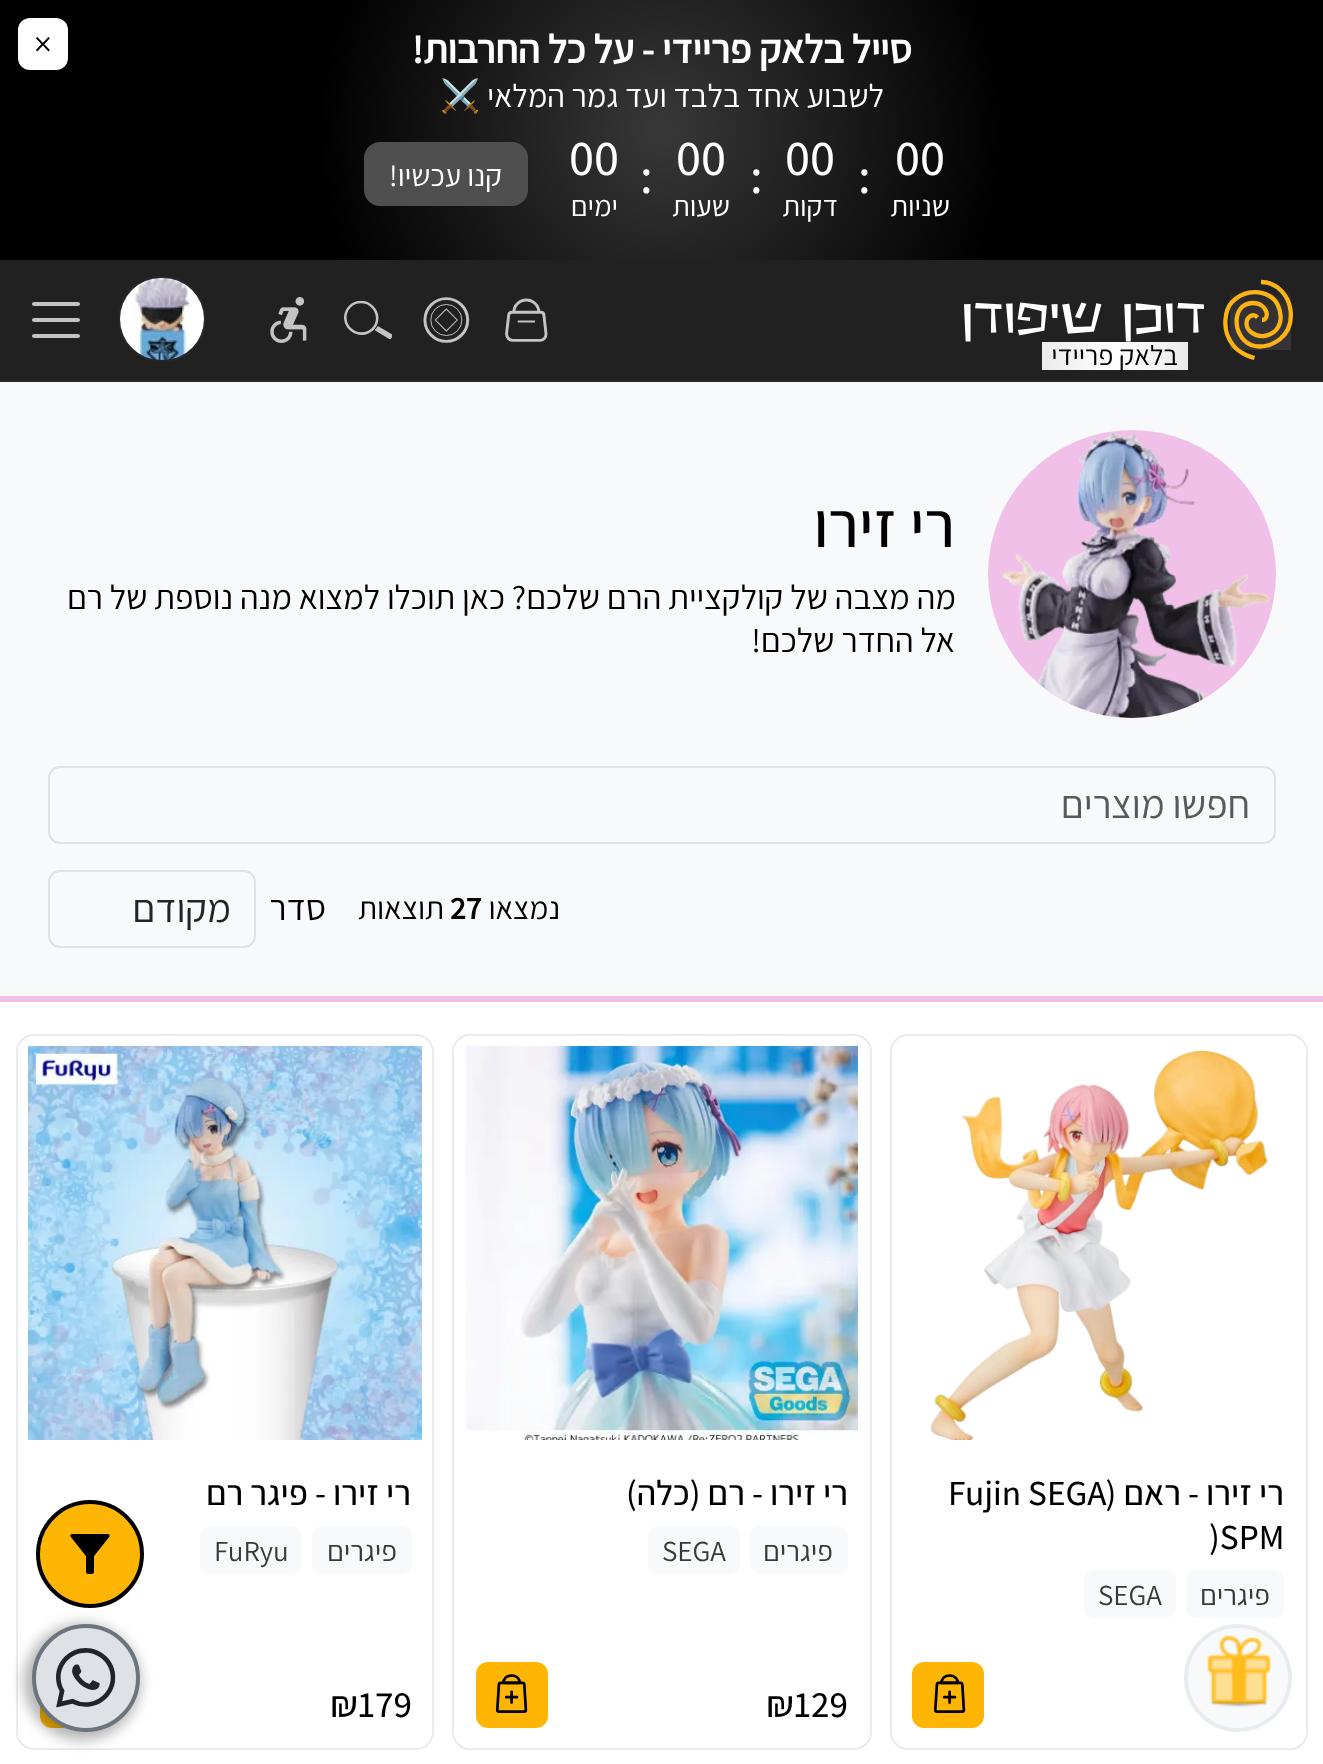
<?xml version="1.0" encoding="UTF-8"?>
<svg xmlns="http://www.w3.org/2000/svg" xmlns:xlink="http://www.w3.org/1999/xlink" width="1323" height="1764">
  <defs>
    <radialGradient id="g1" gradientUnits="userSpaceOnUse" cx="662" cy="130" r="675"><stop offset="0" stop-color="#383838" /><stop offset="0.51" stop-color="#000000" /><stop offset="1" stop-color="#000000" /></radialGradient>
    <linearGradient id="g2" gradientUnits="userSpaceOnUse" x1="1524" y1="289" x2="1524" y2="350"><stop offset="0" stop-color="#231f20" /><stop offset="0.02" stop-color="#242122" /><stop offset="0.17" stop-color="#2f2c2d" /><stop offset="0.39" stop-color="#343234" /><stop offset="1" stop-color="#363436" /></linearGradient>
    <linearGradient id="g3" gradientUnits="userSpaceOnUse" x1="1042" y1="356" x2="1188" y2="356"><stop offset="0" stop-color="#ebebeb" /><stop offset="0.5" stop-color="#ffffff" /><stop offset="1" stop-color="#ebebeb" /></linearGradient>
  </defs>
  <rect width="100%" height="100%" fill="#ffffff" />
  <rect width="1323" height="260" fill="url(#g1)" />
  <rect x="365" y="143" width="162" height="62" rx="15" fill="#4f4f4f" stroke="#4f4f4f" stroke-width="2" />
  <rect x="18" y="18" width="50" height="52" rx="12" fill="#ffffff" />
  <rect y="260" width="1323" height="120" fill="#212121" />
  <rect y="380" width="1323" height="2" fill="#272727" />
  <image x="505" y="298" width="43" height="44" xlink:href="image1.png" />
  <image x="423" y="297" width="47" height="46" xlink:href="image2.png" />
  <image x="344" y="300" width="48" height="40" xlink:href="image3.png" />
  <image x="270" y="297" width="37" height="46" xlink:href="image4.png" />
  <rect x="119" y="277" width="86" height="84" rx="42" fill="none" stroke="#272727" stroke-width="2" />
  <image x="120" y="278" width="84" height="82" xlink:href="image5.png" />
  <path d="M 34 304 h 44 m -44 16 h 44 m -44 16 h 44" fill="none" stroke="#c4c4c4" stroke-width="4" stroke-linecap="round" />
  <rect x="1230" y="290" width="61" height="60" fill="url(#g2)" />
  <path d="M 1262 320 c 8 0 6.5 -17 -9.5 -17 c -23 0.5 -20 39 2.5 43 c 15 3 39 -8.5 35.5 -36 c -1.5 -11.5 -11 -28 -29.5 -28" fill="none" stroke="#fcb415" stroke-width="4.3" />
  <path d="M 1257.5 317.5 c -4.5 -5 -11 -0.5 -11 6 c 0 6.5 7.5 13.5 17.5 12.5 c 22.5 -3 20 -32 5.5 -40 c -13.5 -7.5 -28 -3.5 -37.5 6 c -7 7.5 -11 28 1 43 c 7.5 10 21.5 13 21.5 13" fill="none" stroke="#fcb415" stroke-width="4.3" />
  <image x="964" y="302" width="240" height="40" xlink:href="image6.png" />
  <rect x="1042" y="342" width="146" height="28" fill="url(#g3)" />
  <rect y="382" width="1323" height="614" fill="#f8f9fa" />
  <rect y="996" width="1323" height="6" fill="#f1c0e8" />
  <circle cx="1132" cy="574" r="144" fill="#f1c0e8" />
  <image x="1002" y="431" width="268" height="287" xlink:href="image7.png" />
  <rect x="49" y="767" width="1226" height="76" rx="11" fill="none" stroke="#dee2e6" stroke-width="2" />
  <rect x="49" y="871" width="206" height="76" rx="11" fill="none" stroke="#dee2e6" stroke-width="2" />
  <rect x="891" y="1035" width="416" height="714" rx="17" fill="none" stroke="#e9ecef" stroke-width="2" />
  <image x="930" y="1050" width="338" height="390" xlink:href="image8.png" />
  <rect x="1186" y="1570" width="98" height="48" rx="10" fill="#f8f9fa" />
  <rect x="1084" y="1570" width="92" height="48" rx="10" fill="#f8f9fa" />
  <rect x="912" y="1662" width="72" height="66" rx="12" fill="#ffb503" />
  <image x="934" y="1674" width="32" height="39" xlink:href="image9.png" />
  <rect x="453" y="1035" width="418" height="714" rx="17" fill="none" stroke="#e9ecef" stroke-width="2" />
  <image x="466" y="1046" width="392" height="394" xlink:href="image10.png" />
  <rect x="750" y="1526" width="98" height="48" rx="10" fill="#f8f9fa" />
  <rect x="648" y="1526" width="92" height="48" rx="10" fill="#f8f9fa" />
  <rect x="476" y="1662" width="72" height="66" rx="12" fill="#ffb503" />
  <image x="496" y="1674" width="32" height="39" xlink:href="image11.png" />
  <rect x="17" y="1035" width="416" height="714" rx="17" fill="none" stroke="#e9ecef" stroke-width="2" />
  <image x="28" y="1046" width="394" height="394" xlink:href="image12.png" />
  <rect x="312" y="1526" width="100" height="48" rx="10" fill="#f8f9fa" />
  <rect x="200" y="1526" width="102" height="48" rx="10" fill="#f8f9fa" />
  <rect x="40" y="1662" width="72" height="66" rx="12" fill="#ffb503" />
  <circle cx="90" cy="1554" r="52" fill="#ffb503" stroke="#000000" stroke-width="4" />
  <image x="70" y="1534" width="40" height="40" xlink:href="image13.png" />
  <circle cx="1238" cy="1678" r="52" fill="#f8f9fa" stroke="#e9ecef" stroke-width="4" />
  <image x="1207" y="1635" width="64" height="72" xlink:href="image14.png" />
  <rect x="24" y="1624" width="116" height="116" rx="58" fill="#000000" fill-opacity="0.3" filter="blur(7px)" />
  <circle cx="86" cy="1678" r="52" fill="#dee2e6" stroke="#6c757d" stroke-width="4" />
  <image x="56" y="1648" width="60" height="60" xlink:href="image15.png" />
  <text x="912" y="63" style="font-family: Assistant; font-size: 39.6px; font-weight: bold; direction: rtl; fill: #ffffff">סייל בלאק פריידי - על כל החרבות!</text>
  <text x="884" y="107" style="font-family: Assistant; font-size: 32.4px; direction: rtl; fill: #ffffff">לשבוע אחד בלבד ועד גמר המלאי</text>
  <text x="481" y="107" style="font-family: Noto Color Emoji; font-size: 32.4px; direction: rtl; fill: #ffffff">⚔️</text>
  <text x="895" y="175" style="font-family: Assistant; font-size: 50px; font-weight: 500; fill: #ffffff">00</text>
  <text x="950" y="216" style="font-family: Assistant; font-size: 29px; direction: rtl; fill: #ffffff">שניות</text>
  <text x="858" y="193" style="font-family: Assistant; font-size: 50px; font-weight: 500; fill: #ffffff">:</text>
  <text x="785" y="175" style="font-family: Assistant; font-size: 50px; font-weight: 500; fill: #ffffff">00</text>
  <text x="838" y="216" style="font-family: Assistant; font-size: 29px; direction: rtl; fill: #ffffff">דקות</text>
  <text x="750" y="193" style="font-family: Assistant; font-size: 50px; font-weight: 500; fill: #ffffff">:</text>
  <text x="676" y="175" style="font-family: Assistant; font-size: 50px; font-weight: 500; fill: #ffffff">00</text>
  <text x="730" y="216" style="font-family: Assistant; font-size: 29px; direction: rtl; fill: #ffffff">שעות</text>
  <text x="640" y="193" style="font-family: Assistant; font-size: 50px; font-weight: 500; fill: #ffffff">:</text>
  <text x="569" y="175" style="font-family: Assistant; font-size: 50px; font-weight: 500; fill: #ffffff">00</text>
  <text x="618" y="216" style="font-family: Assistant; font-size: 29px; direction: rtl; fill: #ffffff">ימים</text>
  <text x="502" y="186" style="font-family: Assistant; font-size: 30.5px; direction: rtl; fill: #ffffff">קנו עכשיו!</text>
  <text x="34" y="56" style="font-family: Assistant; font-size: 36px; fill: #000000">×</text>
  <text x="1178" y="365" style="font-family: Assistant; font-size: 28px; direction: rtl; fill: #000000">בלאק פריידי</text>
  <text x="955" y="547" style="font-family: Assistant; font-size: 64px; font-weight: 500; direction: rtl; fill: #000000">רי זירו</text>
  <text x="956" y="609" style="font-family: Assistant; font-size: 34.2px; direction: rtl; fill: #000000">מה מצבה של קולקציית הרם שלכם? כאן תוכלו למצוא מנה נוספת של רם</text>
  <text x="955" y="652" style="font-family: Assistant; font-size: 34.2px; direction: rtl; fill: #000000">אל החדר שלכם!</text>
  <text x="1250" y="818" style="font-family: Assistant; font-size: 39.6px; direction: rtl; fill: #575a5d">חפשו מוצרים</text>
  <text x="560" y="919" style="font-family: Assistant; font-size: 31.5px; direction: rtl; fill: #000000">נמצאו</text>
  <text x="450" y="919" style="font-family: Assistant; font-size: 31.5px; font-weight: bold; fill: #000000">27</text>
  <text x="444" y="919" style="font-family: Assistant; font-size: 31.5px; direction: rtl; fill: #000000">תוצאות</text>
  <text x="326" y="920" style="font-family: Assistant; font-size: 36px; direction: rtl; fill: #000000">סדר</text>
  <text x="231" y="922" style="font-family: Assistant; font-size: 39.6px; direction: rtl; fill: #212529">מקודם</text>
  <text x="1284" y="1505" style="font-family: Assistant; font-size: 35.25px; font-weight: 500; direction: rtl; fill: #000000">רי זירו - ראם (</text>
  <text x="948" y="1505" style="font-family: Assistant; font-size: 35.25px; font-weight: 500; fill: #000000">Fujin SEGA</text>
  <text x="1209" y="1549" style="font-family: Assistant; font-size: 35.25px; font-weight: 500; fill: #000000">)SPM</text>
  <text x="1270" y="1605" style="font-family: Assistant; font-size: 29px; direction: rtl; fill: #343a40">פיגרים</text>
  <text x="1098" y="1605" style="font-family: Assistant; font-size: 29px; fill: #343a40">SEGA</text>
  <text x="848" y="1505" style="font-family: Assistant; font-size: 35.25px; font-weight: 500; direction: rtl; fill: #000000">רי זירו - רם (כלה)</text>
  <text x="833" y="1561" style="font-family: Assistant; font-size: 29px; direction: rtl; fill: #343a40">פיגרים</text>
  <text x="662" y="1561" style="font-family: Assistant; font-size: 29px; fill: #343a40">SEGA</text>
  <text x="766" y="1717" style="font-family: Assistant; font-size: 37px; font-weight: 500; fill: #000000">₪129</text>
  <text x="411" y="1505" style="font-family: Assistant; font-size: 35.25px; font-weight: 500; direction: rtl; fill: #000000">רי זירו - פיגר רם</text>
  <text x="397" y="1561" style="font-family: Assistant; font-size: 29px; direction: rtl; fill: #343a40">פיגרים</text>
  <text x="214" y="1561" style="font-family: Assistant; font-size: 29px; fill: #343a40">FuRyu</text>
  <text x="330" y="1717" style="font-family: Assistant; font-size: 37px; font-weight: 500; fill: #000000">₪179</text>
</svg>
